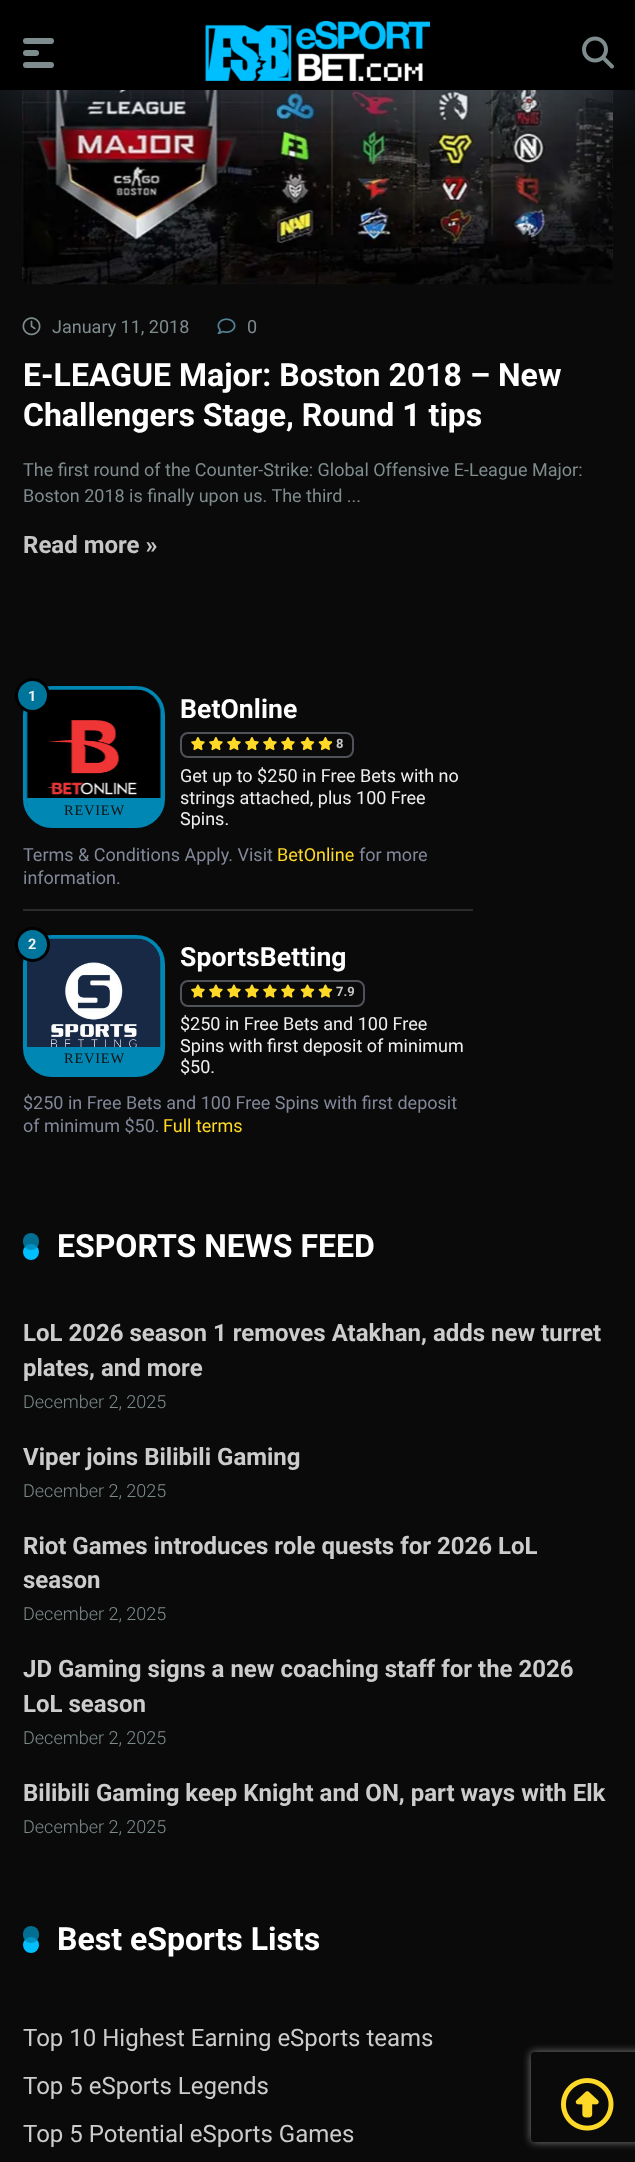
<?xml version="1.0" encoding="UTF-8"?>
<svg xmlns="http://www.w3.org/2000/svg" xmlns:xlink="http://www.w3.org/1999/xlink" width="635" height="2162">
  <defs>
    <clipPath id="clip1"><path d="M 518 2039 h 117 v 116 h -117 z m 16 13 h 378 c 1.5 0 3 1.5 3 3 v 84 c 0 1.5 -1.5 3 -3 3 h -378 c -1.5 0 -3 -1.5 -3 -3 v -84 c 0 -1.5 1.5 -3 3 -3 z" clip-rule="evenodd" /></clipPath>
  </defs>
  <rect width="100%" height="100%" fill="#0a0a0a" />
  <image x="22" y="90" width="591" height="195" xlink:href="image3.png" />
  <rect y="15" width="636" height="90" fill="#6d8dad" fill-opacity="0.25" filter="blur(30px)" />
  <rect width="635" height="90" fill="#000000" />
  <rect x="23" y="38" width="31" height="6" rx="3" fill="#7f8c8d" />
  <rect x="23" y="50" width="16" height="6" rx="3" fill="#7f8c8d" />
  <rect x="23" y="62" width="31" height="6" rx="3" fill="#7f8c8d" />
  <image x="205" y="21" width="225" height="60" xlink:href="image1.png" />
  <image x="582" y="36" width="32" height="33" xlink:href="image2.png" />
  <image x="22" y="317" width="19" height="19" xlink:href="image4.png" />
  <image x="217" y="318" width="19" height="17" xlink:href="image5.png" />
  <rect x="23" y="909" width="450" height="2" fill="#2b2b2b" />
  <rect x="25.5" y="688.5" width="137" height="137" rx="26.5" fill="none" stroke="#0087b4" stroke-width="5" />
  <image x="26" y="689" width="135" height="128" xlink:href="image6.png" />
  <circle cx="32.5" cy="695.5" r="16" fill="#00759c" stroke="#000000" stroke-width="3" />
  <path d="M 27 798 h 134 v 3 c 0 13.5 -10.5 24 -24 24 h -86 c -13.5 0 -24 -10.5 -24 -24 z" fill="#0087b4" />
  <rect x="181" y="733" width="172" height="24" rx="7" fill="none" stroke="#505259" stroke-width="2" />
  <image x="191" y="737" width="14" height="14" xlink:href="image7.png" />
  <image x="209" y="737" width="14" height="14" xlink:href="image7.png" />
  <image x="227" y="737" width="14" height="14" xlink:href="image7.png" />
  <image x="245" y="737" width="14" height="14" xlink:href="image7.png" />
  <image x="263" y="737" width="14" height="14" xlink:href="image7.png" />
  <image x="281" y="737" width="14" height="14" xlink:href="image7.png" />
  <image x="300" y="737" width="15" height="14" xlink:href="image8.png" />
  <image x="318" y="737" width="15" height="14" xlink:href="image8.png" />
  <rect x="25.5" y="937.5" width="137" height="137" rx="26.5" fill="none" stroke="#0087b4" stroke-width="5" />
  <image x="27" y="938" width="134" height="133" xlink:href="image9.png" />
  <circle cx="32.5" cy="944.5" r="16" fill="#00759c" stroke="#000000" stroke-width="3" />
  <path d="M 27 1047 h 134 v 2 c 0 13.5 -10.5 24 -24 24 h -86 c -13.5 0 -24 -10.5 -24 -24 z" fill="#0087b4" />
  <rect x="181" y="981" width="183" height="25" rx="7" fill="none" stroke="#505259" stroke-width="2" />
  <image x="191" y="984" width="14" height="14" xlink:href="image10.png" />
  <image x="209" y="984" width="14" height="14" xlink:href="image10.png" />
  <image x="227" y="984" width="14" height="14" xlink:href="image10.png" />
  <image x="245" y="984" width="14" height="14" xlink:href="image10.png" />
  <image x="263" y="984" width="14" height="14" xlink:href="image10.png" />
  <image x="281" y="984" width="14" height="14" xlink:href="image10.png" />
  <image x="300" y="984" width="15" height="14" xlink:href="image11.png" />
  <image x="318" y="984" width="15" height="14" xlink:href="image11.png" />
  <circle cx="31" cy="1252" r="8" fill="#00bfff" />
  <rect x="23" y="1233" width="16" height="17" rx="8" fill="#0087b4" fill-opacity="0.8" />
  <circle cx="31" cy="1945" r="8" fill="#00bfff" />
  <rect x="23" y="1926" width="16" height="17" rx="8" fill="#0087b4" fill-opacity="0.8" />
  <g clip-path="url(#clip1)">
    <rect x="531" y="2052" width="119" height="90" rx="3" fill="#808080" filter="blur(4px)" />
  </g>
  <image x="561" y="2078" width="53" height="53" xlink:href="image12.png" />
  <text x="52" y="333" style="font-family: Roboto; font-size: 18px; fill: #7f8c8d">January 11, 2018</text>
  <text x="247" y="333" style="font-family: Roboto; font-size: 18px; fill: #7f8c8d">0</text>
  <text x="23" y="386" style="font-family: Roboto; font-size: 32px; font-weight: bold; fill: #ffffff">E-LEAGUE Major: Boston 2018 – New</text>
  <text x="23" y="426" style="font-family: Roboto; font-size: 32px; font-weight: bold; fill: #ffffff">Challengers Stage, Round 1 tips</text>
  <text x="23" y="476" style="font-family: Roboto; font-size: 18px; fill: #7f8c8d">The first round of the Counter-Strike: Global Offensive E-League Major:</text>
  <text x="23" y="502" style="font-family: Roboto; font-size: 18px; fill: #7f8c8d">Boston 2018 is finally upon us. The third ...</text>
  <text x="23" y="553" style="font-family: Roboto; font-size: 24px; font-weight: bold; fill: #c6c6c6">Read more »</text>
  <text x="28" y="701" style="font-family: Roboto; font-size: 14.5px; font-weight: bold; fill: #efefef">1</text>
  <text x="64" y="815" style="font-family: Liberation Serif; font-size: 14.5px; letter-spacing: 0.75px; fill: #111111">REVIEW</text>
  <text x="180" y="718" style="font-family: Roboto; font-size: 26.5px; font-weight: bold; letter-spacing: 0.1px; fill: #ffffff">BetOnline</text>
  <text x="336" y="748" style="font-family: Roboto; font-size: 13px; font-weight: bold; fill: #c6c6c6">8</text>
  <text x="180" y="782" style="font-family: Roboto; font-size: 18px; fill: #efefef">Get up to $250 in Free Bets with no</text>
  <text x="180" y="804" style="font-family: Roboto; font-size: 18px; fill: #efefef">strings attached, plus 100 Free</text>
  <text x="180" y="825" style="font-family: Roboto; font-size: 18px; fill: #efefef">Spins.</text>
  <text x="23" y="861" style="font-family: Roboto; font-size: 18px; fill: #828899">Terms &amp; Conditions Apply. Visit</text>
  <text x="277" y="861" style="font-family: Roboto; font-size: 18px; fill: #ffd927">BetOnline</text>
  <text x="359" y="861" style="font-family: Roboto; font-size: 18px; fill: #828899">for more</text>
  <text x="23" y="884" style="font-family: Roboto; font-size: 18px; fill: #828899">information.</text>
  <text x="28" y="949" style="font-family: Roboto; font-size: 14.5px; font-weight: bold; fill: #efefef">2</text>
  <text x="64" y="1063" style="font-family: Liberation Serif; font-size: 14.5px; letter-spacing: 0.75px; fill: #111111">REVIEW</text>
  <text x="180" y="966" style="font-family: Roboto; font-size: 26.5px; font-weight: bold; letter-spacing: 0.1px; fill: #ffffff">SportsBetting</text>
  <text x="336" y="996" style="font-family: Roboto; font-size: 13px; font-weight: bold; fill: #c6c6c6">7.9</text>
  <text x="180" y="1030" style="font-family: Roboto; font-size: 18px; fill: #efefef">$250 in Free Bets and 100 Free</text>
  <text x="180" y="1052" style="font-family: Roboto; font-size: 18px; fill: #efefef">Spins with first deposit of minimum</text>
  <text x="180" y="1073" style="font-family: Roboto; font-size: 18px; fill: #efefef">$50.</text>
  <text x="23" y="1109" style="font-family: Roboto; font-size: 18px; fill: #828899">$250 in Free Bets and 100 Free Spins with first deposit</text>
  <text x="23" y="1132" style="font-family: Roboto; font-size: 18px; fill: #828899">of minimum $50.</text>
  <text x="163" y="1132" style="font-family: Roboto; font-size: 18px; fill: #ffd927">Full terms</text>
  <text x="57" y="1257" style="font-family: Roboto; font-size: 32px; font-weight: bold; fill: #ffffff">ESPORTS NEWS FEED</text>
  <text x="23" y="1341" style="font-family: Roboto; font-size: 24px; font-weight: bold; fill: #cccccc">LoL 2026 season 1 removes Atakhan, adds new turret</text>
  <text x="23" y="1376" style="font-family: Roboto; font-size: 24px; font-weight: bold; fill: #cccccc">plates, and more</text>
  <text x="23" y="1408" style="font-family: Roboto; font-size: 18px; font-weight: 300; fill: #7f8c8d">December 2, 2025</text>
  <text x="23" y="1465" style="font-family: Roboto; font-size: 24px; font-weight: bold; fill: #cccccc">Viper joins Bilibili Gaming</text>
  <text x="23" y="1497" style="font-family: Roboto; font-size: 18px; font-weight: 300; fill: #7f8c8d">December 2, 2025</text>
  <text x="23" y="1554" style="font-family: Roboto; font-size: 24px; font-weight: bold; fill: #cccccc">Riot Games introduces role quests for 2026 LoL</text>
  <text x="23" y="1588" style="font-family: Roboto; font-size: 24px; font-weight: bold; fill: #cccccc">season</text>
  <text x="23" y="1620" style="font-family: Roboto; font-size: 18px; font-weight: 300; fill: #7f8c8d">December 2, 2025</text>
  <text x="23" y="1677" style="font-family: Roboto; font-size: 24px; font-weight: bold; fill: #cccccc">JD Gaming signs a new coaching staff for the 2026</text>
  <text x="23" y="1712" style="font-family: Roboto; font-size: 24px; font-weight: bold; fill: #cccccc">LoL season</text>
  <text x="23" y="1744" style="font-family: Roboto; font-size: 18px; font-weight: 300; fill: #7f8c8d">December 2, 2025</text>
  <text x="23" y="1801" style="font-family: Roboto; font-size: 24px; font-weight: bold; fill: #cccccc">Bilibili Gaming keep Knight and ON, part ways with Elk</text>
  <text x="23" y="1833" style="font-family: Roboto; font-size: 18px; font-weight: 300; fill: #7f8c8d">December 2, 2025</text>
  <text x="57" y="1950" style="font-family: Roboto; font-size: 32px; font-weight: bold; fill: #ffffff">Best eSports Lists</text>
  <text x="23" y="2046" style="font-family: Roboto; font-size: 24px; fill: #cccccc">Top 10 Highest Earning eSports teams</text>
  <text x="23" y="2094" style="font-family: Roboto; font-size: 24px; fill: #cccccc">Top 5 eSports Legends</text>
  <text x="23" y="2142" style="font-family: Roboto; font-size: 24px; fill: #cccccc">Top 5 Potential eSports Games</text>
</svg>
